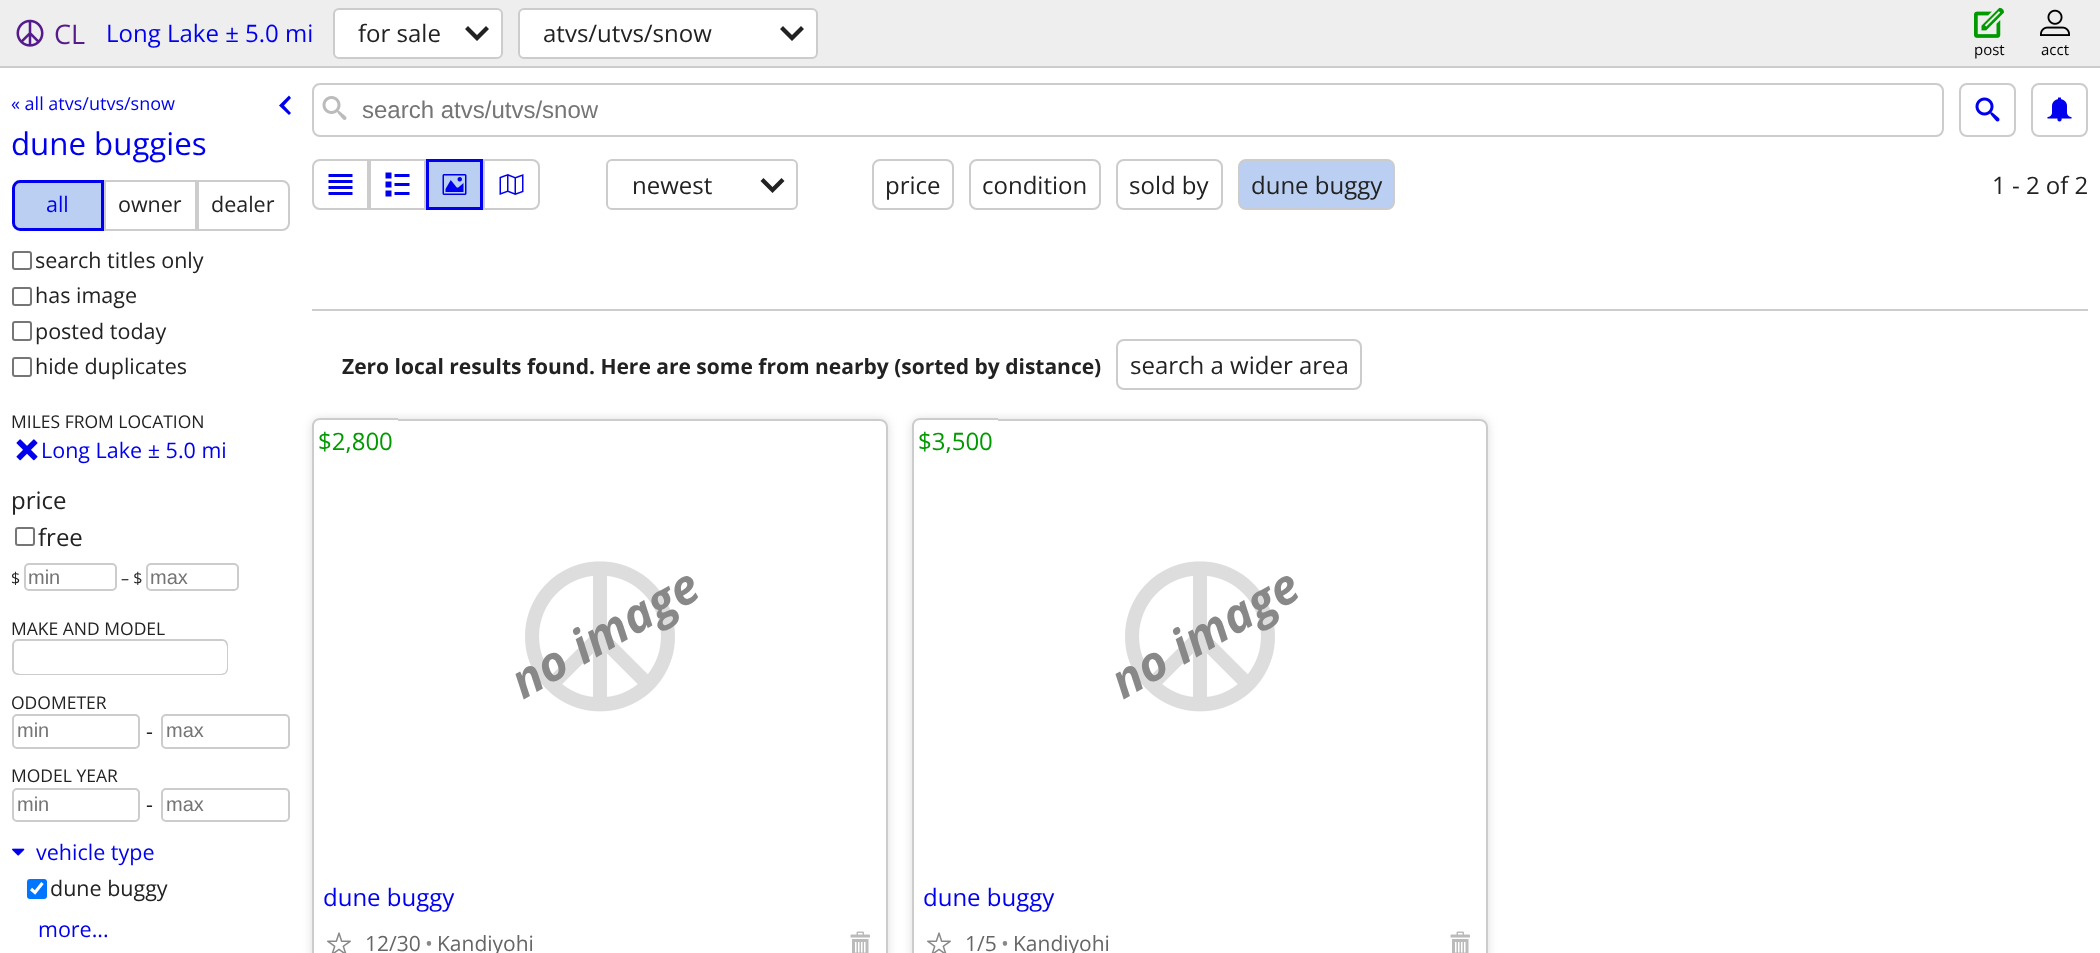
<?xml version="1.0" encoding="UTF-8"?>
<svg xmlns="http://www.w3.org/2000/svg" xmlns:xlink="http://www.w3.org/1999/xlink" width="2100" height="953">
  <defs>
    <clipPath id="clip1"><rect x="14" y="641" width="213" height="33" rx="5" /></clipPath>
    <clipPath id="clip2"><path d="M 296 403 h 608 v 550 h -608 z m 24 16 h 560 c 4.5 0 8 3.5 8 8 v 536 c 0 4.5 -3.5 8 -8 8 h -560 c -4.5 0 -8 -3.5 -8 -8 v -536 c 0 -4.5 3.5 -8 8 -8 z" clip-rule="evenodd" /></clipPath>
    <clipPath id="clip3"><path d="M 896 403 h 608 v 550 h -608 z m 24 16 h 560 c 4.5 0 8 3.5 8 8 v 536 c 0 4.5 -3.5 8 -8 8 h -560 c -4.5 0 -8 -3.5 -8 -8 v -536 c 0 -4.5 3.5 -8 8 -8 z" clip-rule="evenodd" /></clipPath>
  </defs>
  <rect width="100%" height="100%" fill="#ffffff" />
  <rect width="2100" height="66" fill="#eeeeee" />
  <rect y="66" width="2100" height="2" fill="#cccccc" />
  <image x="16" y="19" width="28" height="28" xlink:href="image1.png" />
  <rect x="334" y="9" width="168" height="49" rx="5" fill="#ffffff" stroke="#cccccc" stroke-width="2" />
  <path d="M 489 29 l -3 -3 l -9 9 l -9 -9 l -3 3 l 12 12 z" fill="#222222" />
  <rect x="519" y="9" width="298" height="49" rx="5" fill="#ffffff" stroke="#cccccc" stroke-width="2" />
  <path d="M 804 29 l -3 -3 l -9 9 l -9 -9 l -3 3 l 12 12 z" fill="#222222" />
  <image x="1974" y="7" width="30" height="31" xlink:href="image2.png" />
  <image x="2040" y="9" width="30" height="27" xlink:href="image3.png" />
  <path d="M 289 115 l 2 -2 l -7 -7.5 l 7 -7.5 l -2 -2.5 l -10 10 z" fill="#0000ee" />
  <path d="M 20 181.5 h 82.5 v 48 h -82.5 c -3.5 0 -6.5 -3 -6.5 -6.5 v -35 c 0 -3.5 3 -6.5 6.5 -6.5 z" fill="#bacff2" stroke="#0000ee" stroke-width="3" />
  <rect x="105" y="181" width="91" height="49" fill="none" stroke="#cccccc" stroke-width="2" />
  <path d="M 198 181 h 84 c 4 0 7 3 7 7 v 35 c 0 4 -3 7 -7 7 h -84 z" fill="none" stroke="#cccccc" stroke-width="2" />
  <rect x="13" y="252" width="18" height="17" rx="2" fill="none" stroke="#767676" stroke-width="2" />
  <rect x="13" y="288" width="18" height="17" rx="2" fill="none" stroke="#767676" stroke-width="2" />
  <rect x="13" y="322" width="18" height="18" rx="2" fill="none" stroke="#767676" stroke-width="2" />
  <rect x="13" y="358" width="18" height="18" rx="2" fill="none" stroke="#767676" stroke-width="2" />
  <image x="16" y="439" width="22" height="22" xlink:href="image4.png" />
  <rect x="16" y="528" width="18" height="17" rx="2" fill="none" stroke="#767676" stroke-width="2" />
  <rect x="25" y="564" width="91" height="26" rx="4" fill="none" stroke="#cccccc" stroke-width="2" />
  <rect x="147" y="564" width="91" height="26" rx="4" fill="none" stroke="#cccccc" stroke-width="2" />
  <rect x="13" y="640" width="214" height="34" rx="5" fill="none" stroke="#cccccc" stroke-width="2" />
  <g clip-path="url(#clip1)">
    <rect x="14" y="641" width="213" height="33" rx="6" fill="#ffffff" />
  </g>
  <rect x="13" y="715" width="126" height="33" rx="4" fill="none" stroke="#cccccc" stroke-width="2" />
  <rect x="162" y="715" width="127" height="33" rx="4" fill="none" stroke="#cccccc" stroke-width="2" />
  <rect x="13" y="789" width="126" height="32" rx="4" fill="none" stroke="#cccccc" stroke-width="2" />
  <rect x="162" y="789" width="127" height="32" rx="4" fill="none" stroke="#cccccc" stroke-width="2" />
  <image x="12" y="848" width="13" height="8" xlink:href="image5.png" />
  <rect x="27" y="879" width="20" height="20" rx="3" fill="#0075ff" />
  <path d="M 31 889 l 4 3.5 l 7.5 -9.5" fill="none" stroke="#ffffff" stroke-width="3.1" />
  <rect x="313" y="84" width="1630" height="52" rx="7" fill="none" stroke="#cccccc" stroke-width="2" />
  <image x="322" y="96" width="25" height="24" xlink:href="image6.png" />
  <rect x="1960" y="84" width="55" height="52" rx="7" fill="none" stroke="#cccccc" stroke-width="2" />
  <image x="1975" y="97" width="25" height="25" xlink:href="image7.png" />
  <rect x="2032" y="84" width="55" height="52" rx="7" fill="none" stroke="#cccccc" stroke-width="2" />
  <image x="2047" y="97" width="25" height="25" xlink:href="image8.png" />
  <path d="M 320 160 h 48 v 49 h -48 c -4 0 -7 -3 -7 -7 v -35 c 0 -4 3 -7 7 -7 z" fill="none" stroke="#cccccc" stroke-width="2" />
  <image x="328" y="174" width="25" height="21" xlink:href="image9.png" />
  <rect x="370" y="160" width="55" height="49" fill="none" stroke="#cccccc" stroke-width="2" />
  <image x="385" y="172" width="25" height="25" xlink:href="image10.png" />
  <rect x="427.5" y="160.5" width="54" height="48" fill="#bacff2" stroke="#0000ee" stroke-width="3" />
  <image x="442" y="174" width="25" height="21" xlink:href="image11.png" />
  <path d="M 484 160 h 48 c 4 0 7 3 7 7 v 35 c 0 4 -3 7 -7 7 h -48 z" fill="none" stroke="#cccccc" stroke-width="2" />
  <image x="499" y="174" width="25" height="21" xlink:href="image12.png" />
  <rect x="607" y="160" width="190" height="49" rx="5" fill="none" stroke="#cccccc" stroke-width="2" />
  <path d="M 784.5 181 l -3 -3 l -9 9 l -9 -9 l -3 3 l 12 12 z" fill="#222222" />
  <rect x="873" y="160" width="80" height="49" rx="7" fill="none" stroke="#cccccc" stroke-width="2" />
  <rect x="970" y="160" width="130" height="49" rx="7" fill="none" stroke="#cccccc" stroke-width="2" />
  <rect x="1117" y="160" width="105" height="49" rx="7" fill="none" stroke="#cccccc" stroke-width="2" />
  <rect x="1239" y="160" width="155" height="49" rx="7" fill="#bacff2" stroke="#cccccc" stroke-width="2" />
  <rect x="312" y="309" width="1776" height="2" fill="#cccccc" />
  <rect x="1117" y="340" width="244" height="49" rx="7" fill="none" stroke="#cccccc" stroke-width="2" />
  <g clip-path="url(#clip2)">
    <rect x="312" y="419" width="576" height="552" rx="8" fill="#dddddd" filter="blur(5px)" />
  </g>
  <rect x="313" y="420" width="574" height="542" rx="7" fill="none" stroke="#cccccc" stroke-width="2" />
  <path d="M 320 419 h 78 v 35 c 0 4.5 -3.5 8 -8 8 h -78 v -35 c 0 -4.5 3.5 -8 8 -8 z" fill="#ffffff" />
  <path d="M 320 418 h 78 v 36 c 0 5 -4 8 -8 8 h -78 v -36 c 0 -4 3 -8 8 -8 z m 0 2 h 78 v 34 c 0 5 -4 8 -8 8 h -76 v -36 c 0 -3 2 -6 6 -6 z" fill="#cccccc" fill-rule="evenodd" />
  <image x="525" y="561" width="150" height="151" xlink:href="image13.png" />
  <image x="327" y="932" width="24" height="21" xlink:href="image14.png" />
  <image x="850" y="931" width="20" height="22" xlink:href="image15.png" />
  <g clip-path="url(#clip3)">
    <rect x="912" y="419" width="576" height="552" rx="8" fill="#dddddd" filter="blur(5px)" />
  </g>
  <rect x="913" y="420" width="574" height="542" rx="7" fill="none" stroke="#cccccc" stroke-width="2" />
  <path d="M 920 419 h 78 v 35 c 0 4.5 -3.5 8 -8 8 h -78 v -35 c 0 -4.5 3.5 -8 8 -8 z" fill="#ffffff" />
  <path d="M 920 418 h 78 v 36 c 0 5 -4 8 -8 8 h -78 v -36 c 0 -4 3 -8 8 -8 z m 0 2 h 78 v 34 c 0 5 -4 8 -8 8 h -76 v -36 c 0 -3 2 -6 6 -6 z" fill="#cccccc" fill-rule="evenodd" />
  <image x="1125" y="561" width="150" height="151" xlink:href="image13.png" />
  <image x="927" y="932" width="24" height="21" xlink:href="image14.png" />
  <image x="1450" y="931" width="20" height="22" xlink:href="image15.png" />
  <text x="54" y="44" style="font-family: Open Sans; font-size: 27px; fill: #551a8b">CL</text>
  <text x="106" y="42" style="font-family: Open Sans; font-size: 24px; fill: #0000ee">Long Lake ± 5.0 mi</text>
  <text x="358" y="42" style="font-family: Open Sans; font-size: 24px; fill: #222222">for sale</text>
  <text x="543" y="42" style="font-family: Open Sans; font-size: 24px; fill: #222222">atvs/utvs/snow</text>
  <text x="1974" y="55" style="font-family: Open Sans; font-size: 15px; fill: #000000">post</text>
  <text x="2041" y="55" style="font-family: Open Sans; font-size: 15px; fill: #000000">acct</text>
  <text x="11" y="110" style="font-family: Open Sans; font-size: 18px; fill: #0000ee">« all atvs/utvs/snow</text>
  <text x="11" y="155" style="font-family: Open Sans; font-size: 31.25px; fill: #0000ee">dune buggies</text>
  <text x="46" y="212" style="font-family: Open Sans; font-size: 21.5px; fill: #0000ee">all</text>
  <text x="118" y="212" style="font-family: Open Sans; font-size: 21.5px; fill: #222222">owner</text>
  <text x="211" y="212" style="font-family: Open Sans; font-size: 21.5px; fill: #222222">dealer</text>
  <text x="35" y="268" style="font-family: Open Sans; font-size: 21.5px; fill: #222222">search titles only</text>
  <text x="35" y="303" style="font-family: Open Sans; font-size: 21.5px; fill: #222222">has image</text>
  <text x="35" y="339" style="font-family: Open Sans; font-size: 21.5px; fill: #222222">posted today</text>
  <text x="35" y="374" style="font-family: Open Sans; font-size: 21.5px; fill: #222222">hide duplicates</text>
  <text x="11" y="428" style="font-family: Open Sans; font-size: 17.5px; fill: #222222">MILES FROM LOCATION</text>
  <text x="41" y="458" style="font-family: Open Sans; font-size: 21.5px; fill: #0000ee">Long Lake ± 5.0 mi</text>
  <text x="11" y="509" style="font-family: Open Sans; font-size: 24px; fill: #222222">price</text>
  <text x="38" y="546" style="font-family: Open Sans; font-size: 24px; fill: #222222">free</text>
  <text x="11" y="584" style="font-family: Open Sans; font-size: 16px; fill: #222222">$</text>
  <text x="28" y="584" style="font-family: Liberation Sans; font-size: 20px; fill: #757575">min</text>
  <text x="121" y="584" style="font-family: Open Sans; font-size: 16px; fill: #222222">– $</text>
  <text x="150" y="584" style="font-family: Liberation Sans; font-size: 20px; fill: #757575">max</text>
  <text x="11" y="635" style="font-family: Open Sans; font-size: 17.5px; fill: #222222">MAKE AND MODEL</text>
  <text x="11" y="709" style="font-family: Open Sans; font-size: 17.5px; fill: #222222">ODOMETER</text>
  <text x="17" y="737" style="font-family: Liberation Sans; font-size: 20px; fill: #757575">min</text>
  <text x="146" y="739" style="font-family: Open Sans; font-size: 21.5px; fill: #222222">-</text>
  <text x="166" y="737" style="font-family: Liberation Sans; font-size: 20px; fill: #757575">max</text>
  <text x="11" y="782" style="font-family: Open Sans; font-size: 17.5px; fill: #222222">MODEL YEAR</text>
  <text x="17" y="811" style="font-family: Liberation Sans; font-size: 20px; fill: #757575">min</text>
  <text x="146" y="812" style="font-family: Open Sans; font-size: 21.5px; fill: #222222">-</text>
  <text x="166" y="811" style="font-family: Liberation Sans; font-size: 20px; fill: #757575">max</text>
  <text x="36" y="860" style="font-family: Open Sans; font-size: 21.5px; fill: #0000ee">vehicle type</text>
  <text x="50" y="896" style="font-family: Open Sans; font-size: 21.5px; fill: #222222">dune buggy</text>
  <text x="38" y="937" style="font-family: Open Sans; font-size: 21.5px; fill: #0000ee">more...</text>
  <text x="362" y="118" style="font-family: Liberation Sans; font-size: 24px; fill: #757575">search atvs/utvs/snow</text>
  <text x="632" y="194" style="font-family: Open Sans; font-size: 24px; fill: #222222">newest</text>
  <text x="885" y="194" style="font-family: Open Sans; font-size: 24px; fill: #222222">price</text>
  <text x="982" y="194" style="font-family: Open Sans; font-size: 24px; fill: #222222">condition</text>
  <text x="1129" y="194" style="font-family: Open Sans; font-size: 24px; fill: #222222">sold by</text>
  <text x="1251" y="194" style="font-family: Open Sans; font-size: 24px; fill: #222222">dune buggy</text>
  <text x="1992" y="194" style="font-family: Open Sans; font-size: 24px; fill: #222222">1 - 2 of 2</text>
  <text x="342" y="374" style="font-family: Open Sans; font-size: 21px; font-weight: bold; fill: #222222">Zero local results found. Here are some from nearby (sorted by distance)</text>
  <text x="1130" y="374" style="font-family: Open Sans; font-size: 24px; fill: #222222">search a wider area</text>
  <text x="318" y="450" style="font-family: Open Sans; font-size: 24px; fill: #009900">$2,800</text>
  <text x="523" y="700" transform="rotate(-30 523 700)" style="font-family: Open Sans; font-size: 48px; font-weight: bold; font-style: italic; fill: #888888">no image</text>
  <text x="323" y="906" style="font-family: Open Sans; font-size: 24px; fill: #0000ee">dune buggy</text>
  <text x="365" y="951" style="font-family: Open Sans; font-size: 21px; fill: #666666">12/30</text>
  <text x="425" y="951" style="font-family: Open Sans; font-size: 21px; fill: #888888">•</text>
  <text x="437" y="951" style="font-family: Open Sans; font-size: 21px; fill: #666666">Kandiyohi</text>
  <text x="918" y="450" style="font-family: Open Sans; font-size: 24px; fill: #009900">$3,500</text>
  <text x="1123" y="700" transform="rotate(-30 1123 700)" style="font-family: Open Sans; font-size: 48px; font-weight: bold; font-style: italic; fill: #888888">no image</text>
  <text x="923" y="906" style="font-family: Open Sans; font-size: 24px; fill: #0000ee">dune buggy</text>
  <text x="965" y="951" style="font-family: Open Sans; font-size: 21px; fill: #666666">1/5</text>
  <text x="1001" y="951" style="font-family: Open Sans; font-size: 21px; fill: #888888">•</text>
  <text x="1013" y="951" style="font-family: Open Sans; font-size: 21px; fill: #666666">Kandiyohi</text>
</svg>
